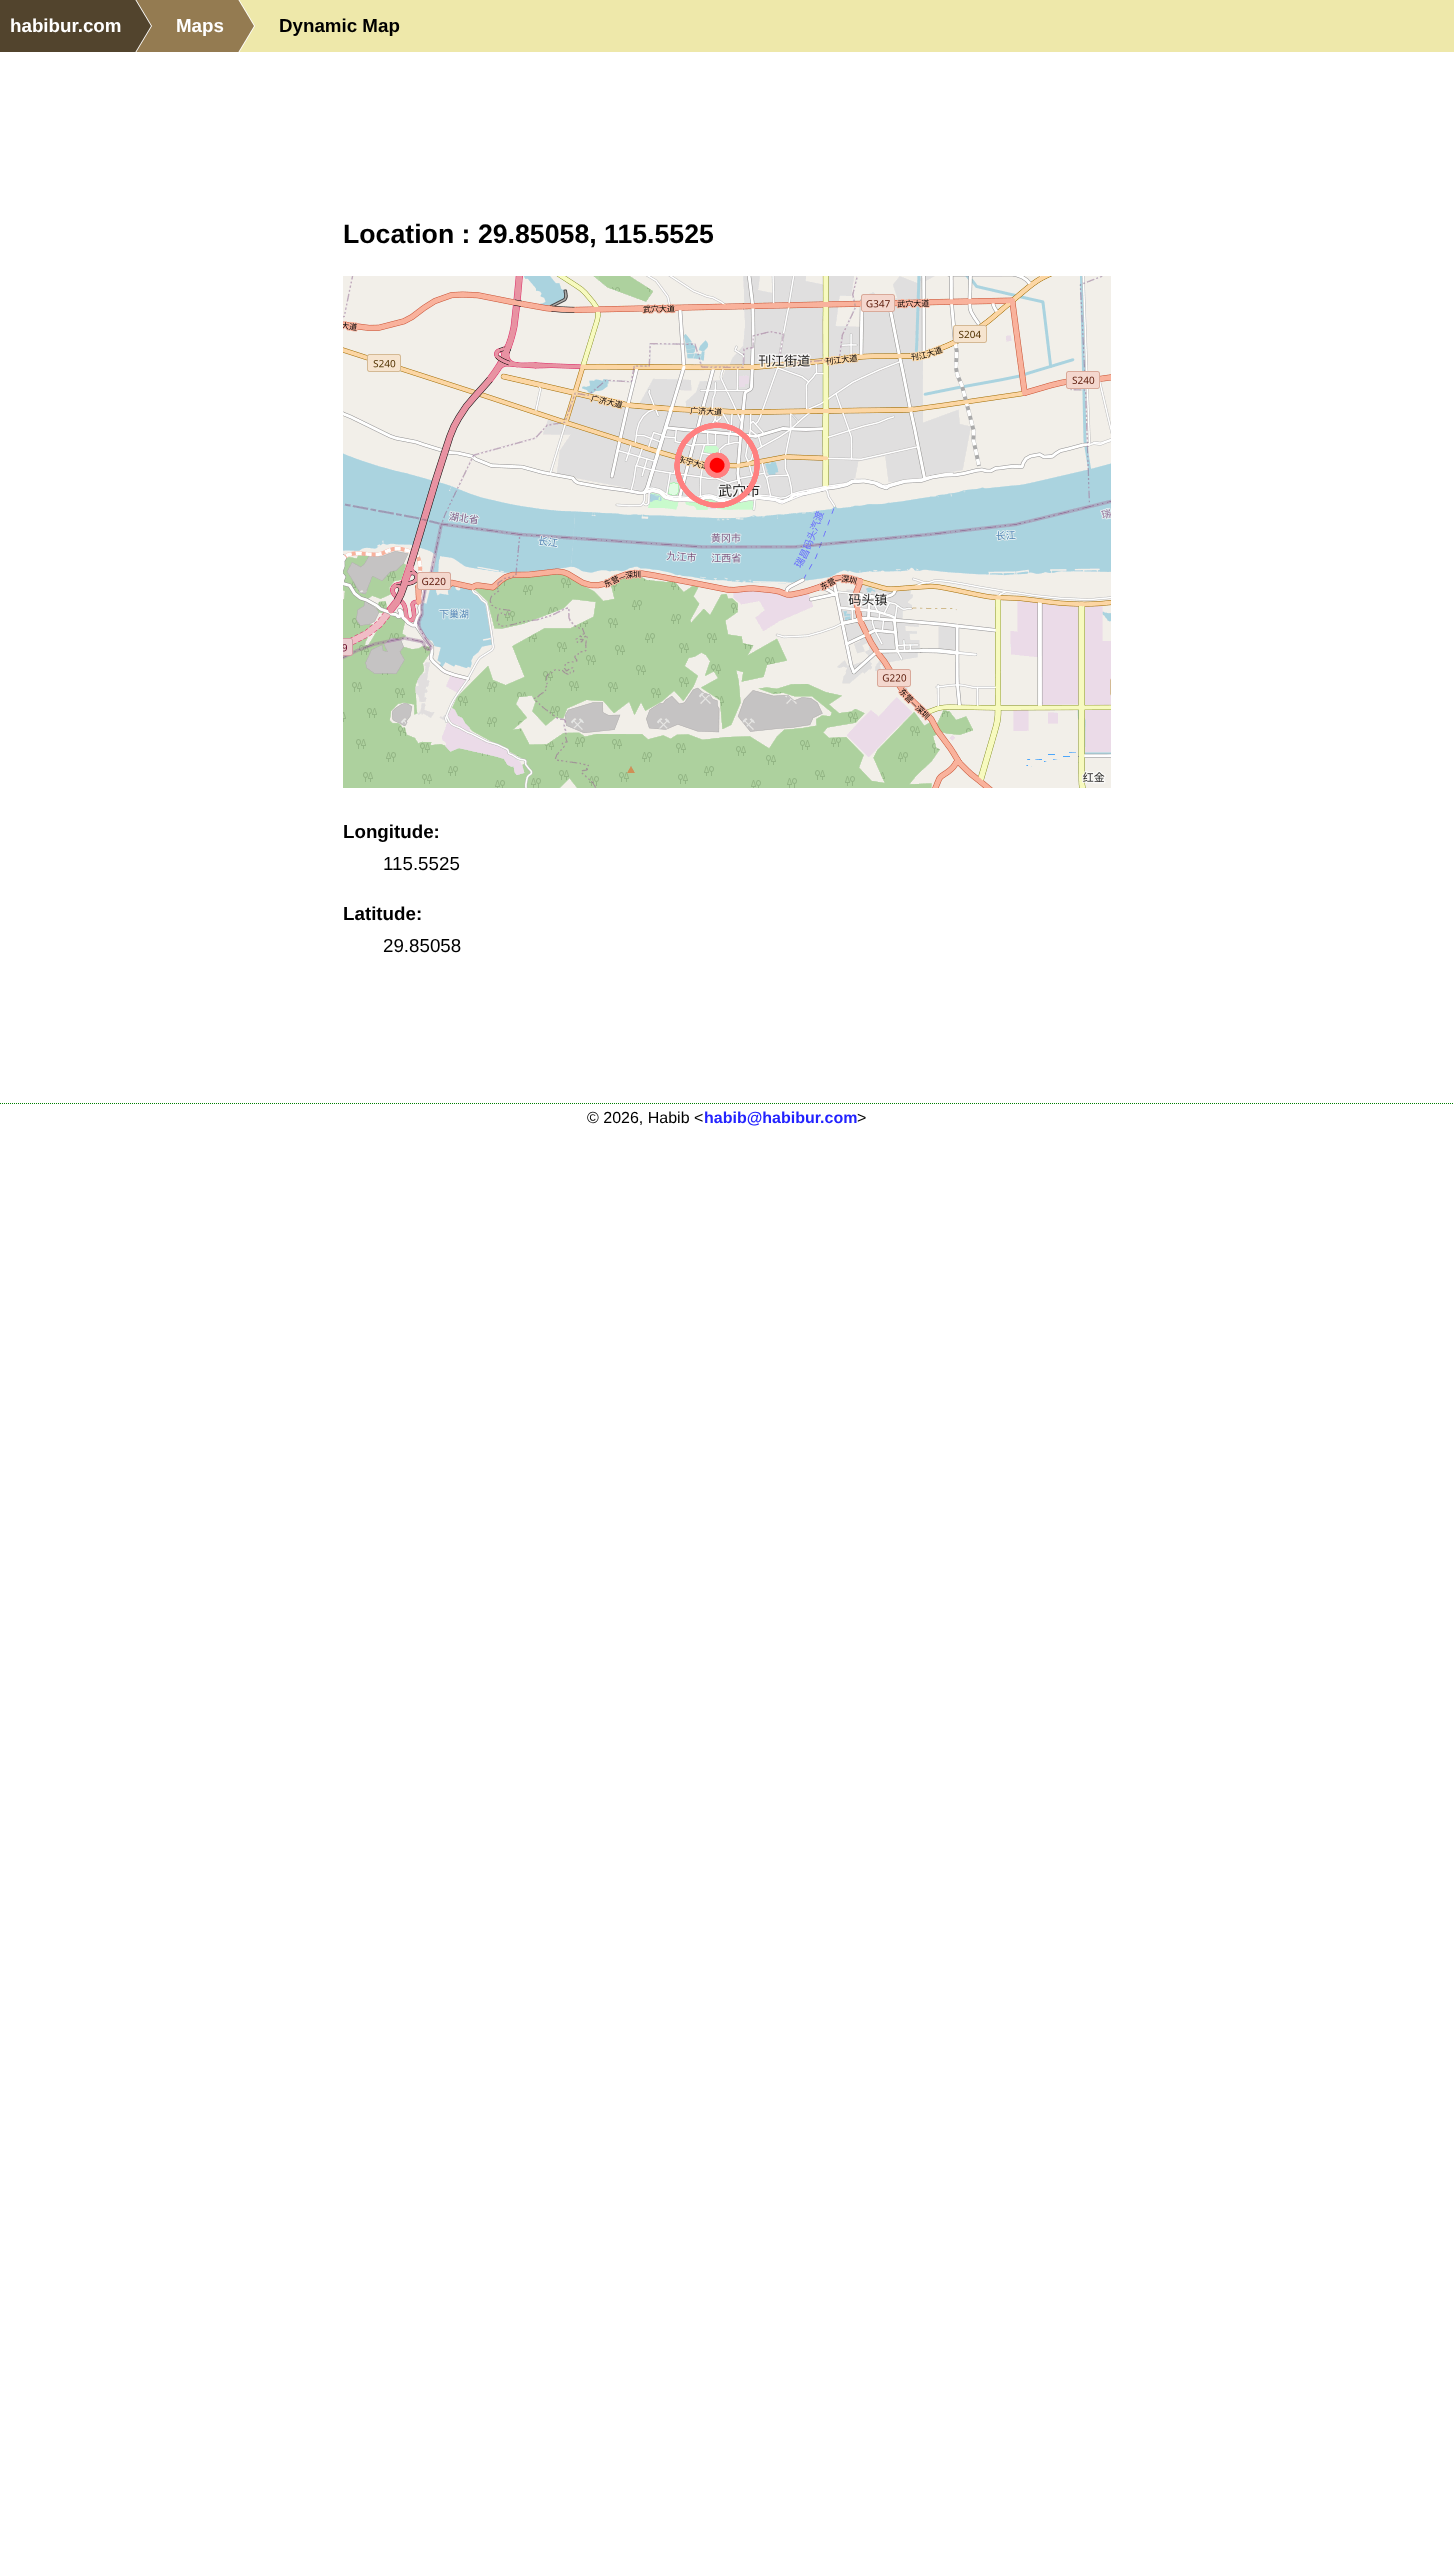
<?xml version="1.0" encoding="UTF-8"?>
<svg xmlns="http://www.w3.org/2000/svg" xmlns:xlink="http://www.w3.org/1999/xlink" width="1454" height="2570">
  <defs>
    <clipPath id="clip1"><rect width="399" height="52" /></clipPath>
  </defs>
  <rect width="100%" height="100%" fill="#ffffff" />
  <rect x="239" width="1215" height="52" fill="#eee8aa" />
  <rect width="121" height="52" fill="#52442d" />
  <rect x="136" width="88" height="52" fill="#947b51" />
  <g clip-path="url(#clip1)">
    <path d="M 122 76 v -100 l 30 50 z" fill="#ffffff" />
    <path d="M 121 76 v -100 l 30 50 z" fill="#52442d" />
    <path d="M 225 76 v -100 l 30 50 z" fill="#ffffff" />
    <path d="M 224 76 v -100 l 30 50 z" fill="#947b51" />
  </g>
  <image x="343" y="276" width="768" height="512" xlink:href="image1.png" />
  <path d="M 0 1103.5 h 1454" fill="none" stroke="#008000" stroke-dasharray="1 1" />
  <text x="10" y="32" style="font-family: Liberation Sans; font-size: 18.75px; font-weight: bold; fill: #ffffff">habibur.com</text>
  <text x="176" y="32" style="font-family: Liberation Sans; font-size: 18.75px; font-weight: bold; fill: #ffffff">Maps</text>
  <text x="279" y="32" style="font-family: Liberation Sans; font-size: 18.75px; font-weight: bold; fill: #000000">Dynamic Map</text>
  <text x="343" y="243" style="font-family: Liberation Sans; font-size: 26.7px; font-weight: bold; fill: #000000">Location : 29.85058, 115.5525</text>
  <text x="343" y="838" style="font-family: Liberation Sans; font-size: 18.75px; font-weight: bold; fill: #000000">Longitude:</text>
  <text x="383" y="870" style="font-family: Liberation Sans; font-size: 18.75px; fill: #000000">115.5525</text>
  <text x="343" y="920" style="font-family: Liberation Sans; font-size: 18.75px; font-weight: bold; fill: #000000">Latitude:</text>
  <text x="383" y="952" style="font-family: Liberation Sans; font-size: 18.75px; fill: #000000">29.85058</text>
  <text x="587" y="1123" style="font-family: Liberation Sans; font-size: 16px; fill: #000000">© 2026, Habib &lt;</text>
  <text x="704" y="1123" style="font-family: Liberation Sans; font-size: 16px; font-weight: bold; fill: #2222ff">habib@habibur.com</text>
  <text x="857" y="1123" style="font-family: Liberation Sans; font-size: 16px; fill: #000000">&gt;</text>
</svg>
